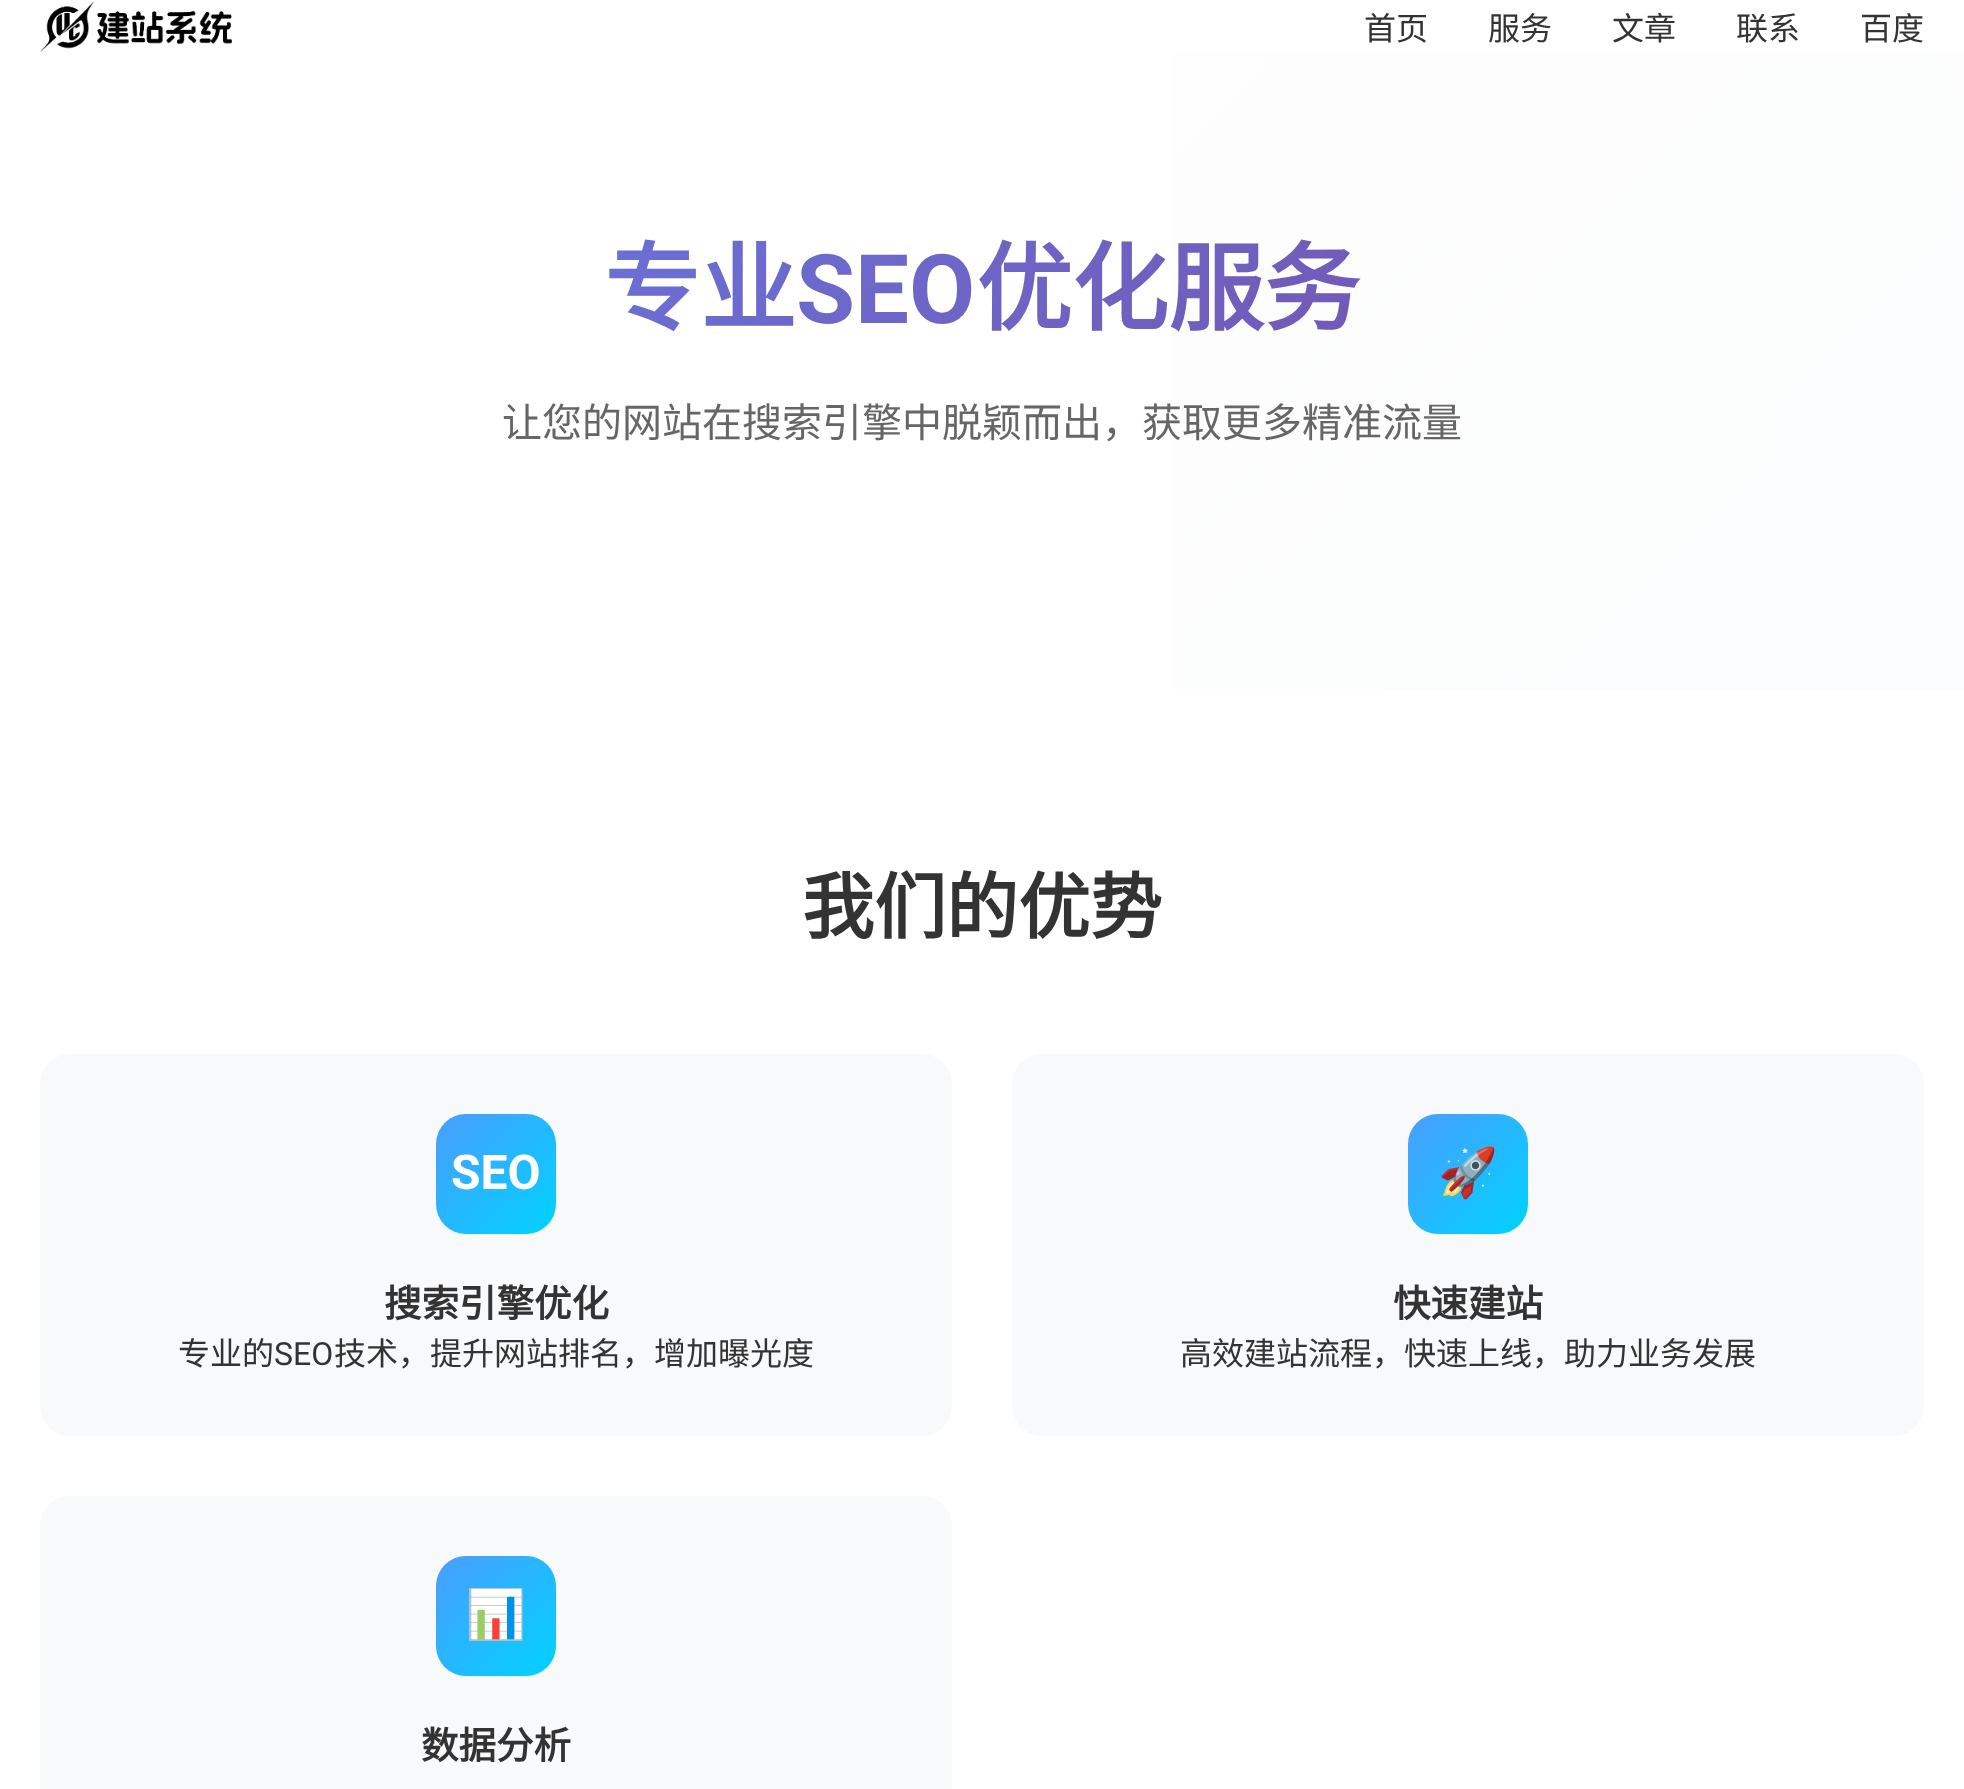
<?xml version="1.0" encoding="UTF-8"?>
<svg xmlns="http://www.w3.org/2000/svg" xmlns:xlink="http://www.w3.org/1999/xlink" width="1964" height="1789">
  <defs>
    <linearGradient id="g1" gradientUnits="userSpaceOnUse" x1="476" y1="-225" x2="1488" y2="787"><stop offset="0" stop-color="#667eea" /><stop offset="1" stop-color="#764ba2" /></linearGradient>
    <linearGradient id="g2" gradientUnits="userSpaceOnUse" x1="-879" y1="879" x2="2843" y2="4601"><stop offset="0" stop-color="#ffffff" /><stop offset="1" stop-color="#f5f7fa" /></linearGradient>
    <linearGradient id="g3" gradientUnits="userSpaceOnUse" x1="436" y1="1114" x2="556" y2="1234"><stop offset="0" stop-color="#4a9eff" /><stop offset="1" stop-color="#00d2ff" /></linearGradient>
    <linearGradient id="g4" gradientUnits="userSpaceOnUse" x1="1408" y1="1114" x2="1528" y2="1234"><stop offset="0" stop-color="#4a9eff" /><stop offset="1" stop-color="#00d2ff" /></linearGradient>
    <linearGradient id="g5" gradientUnits="userSpaceOnUse" x1="436" y1="1556" x2="556" y2="1676"><stop offset="0" stop-color="#4a9eff" /><stop offset="1" stop-color="#00d2ff" /></linearGradient>
  </defs>
  <rect width="100%" height="100%" fill="#ffffff" />
  <rect x="1172" y="52" width="792" height="638" fill="url(#g2)" />
  <image x="40" y="1" width="193" height="51" xlink:href="image1.png" />
  <rect x="40" y="1054" width="912" height="382" rx="30" fill="#f8f9fa" />
  <rect x="436" y="1114" width="120" height="120" rx="30" fill="url(#g3)" />
  <rect x="1012" y="1054" width="912" height="382" rx="30" fill="#f8f9fa" />
  <rect x="1408" y="1114" width="120" height="120" rx="30" fill="url(#g4)" />
  <rect x="40" y="1496" width="912" height="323" rx="30" fill="#f8f9fa" />
  <rect x="436" y="1556" width="120" height="120" rx="30" fill="url(#g5)" />
  <text x="1364" y="40" style="font-family: Noto Sans CJK SC; font-size: 32px; fill: #333333">首页</text>
  <text x="1488" y="40" style="font-family: Noto Sans CJK SC; font-size: 32px; fill: #333333">服务</text>
  <text x="1612" y="40" style="font-family: Noto Sans CJK SC; font-size: 32px; fill: #333333">文章</text>
  <text x="1736" y="40" style="font-family: Noto Sans CJK SC; font-size: 32px; fill: #333333">联系</text>
  <text x="1860" y="40" style="font-family: Noto Sans CJK SC; font-size: 32px; fill: #333333">百度</text>
  <text x="604" y="323" style="font-family: Noto Sans CJK SC; font-size: 96px; font-weight: bold; fill: url(#g1)">专业</text>
  <text x="796" y="323" style="font-family: Roboto; font-size: 96px; font-weight: bold; fill: url(#g1)">SEO</text>
  <text x="976" y="323" style="font-family: Noto Sans CJK SC; font-size: 96px; font-weight: bold; fill: url(#g1)">优化服务</text>
  <text x="502" y="437" style="font-family: Noto Sans CJK SC; font-size: 40px; fill: #666666">让您的网站在搜索引擎中脱颖而出，获取更多精准流量</text>
  <text x="802" y="933" style="font-family: Noto Sans CJK SC; font-size: 72px; font-weight: bold; fill: #333333">我们的优势</text>
  <text x="451" y="1189" style="font-family: Roboto; font-size: 48px; font-weight: bold; fill: #ffffff">SEO</text>
  <text x="384" y="1317" style="font-family: Noto Sans CJK SC; font-size: 37.5px; font-weight: bold; fill: #333333">搜索引擎优化</text>
  <text x="178" y="1365" style="font-family: Noto Sans CJK SC; font-size: 32px; fill: #333333">专业的</text>
  <text x="274" y="1365" style="font-family: Roboto; font-size: 32px; fill: #333333">SEO</text>
  <text x="334" y="1365" style="font-family: Noto Sans CJK SC; font-size: 32px; fill: #333333">技术，提升网站排名，增加曝光度</text>
  <text x="1438" y="1189" style="font-family: Noto Color Emoji; font-size: 48px; font-weight: bold; fill: #ffffff">🚀</text>
  <text x="1393" y="1317" style="font-family: Noto Sans CJK SC; font-size: 37.5px; font-weight: bold; fill: #333333">快速建站</text>
  <text x="1180" y="1365" style="font-family: Noto Sans CJK SC; font-size: 32px; fill: #333333">高效建站流程，快速上线，助力业务发展</text>
  <text x="466" y="1631" style="font-family: Noto Color Emoji; font-size: 48px; font-weight: bold; fill: #ffffff">📊</text>
  <text x="421" y="1759" style="font-family: Noto Sans CJK SC; font-size: 37.5px; font-weight: bold; fill: #333333">数据分析</text>
</svg>
